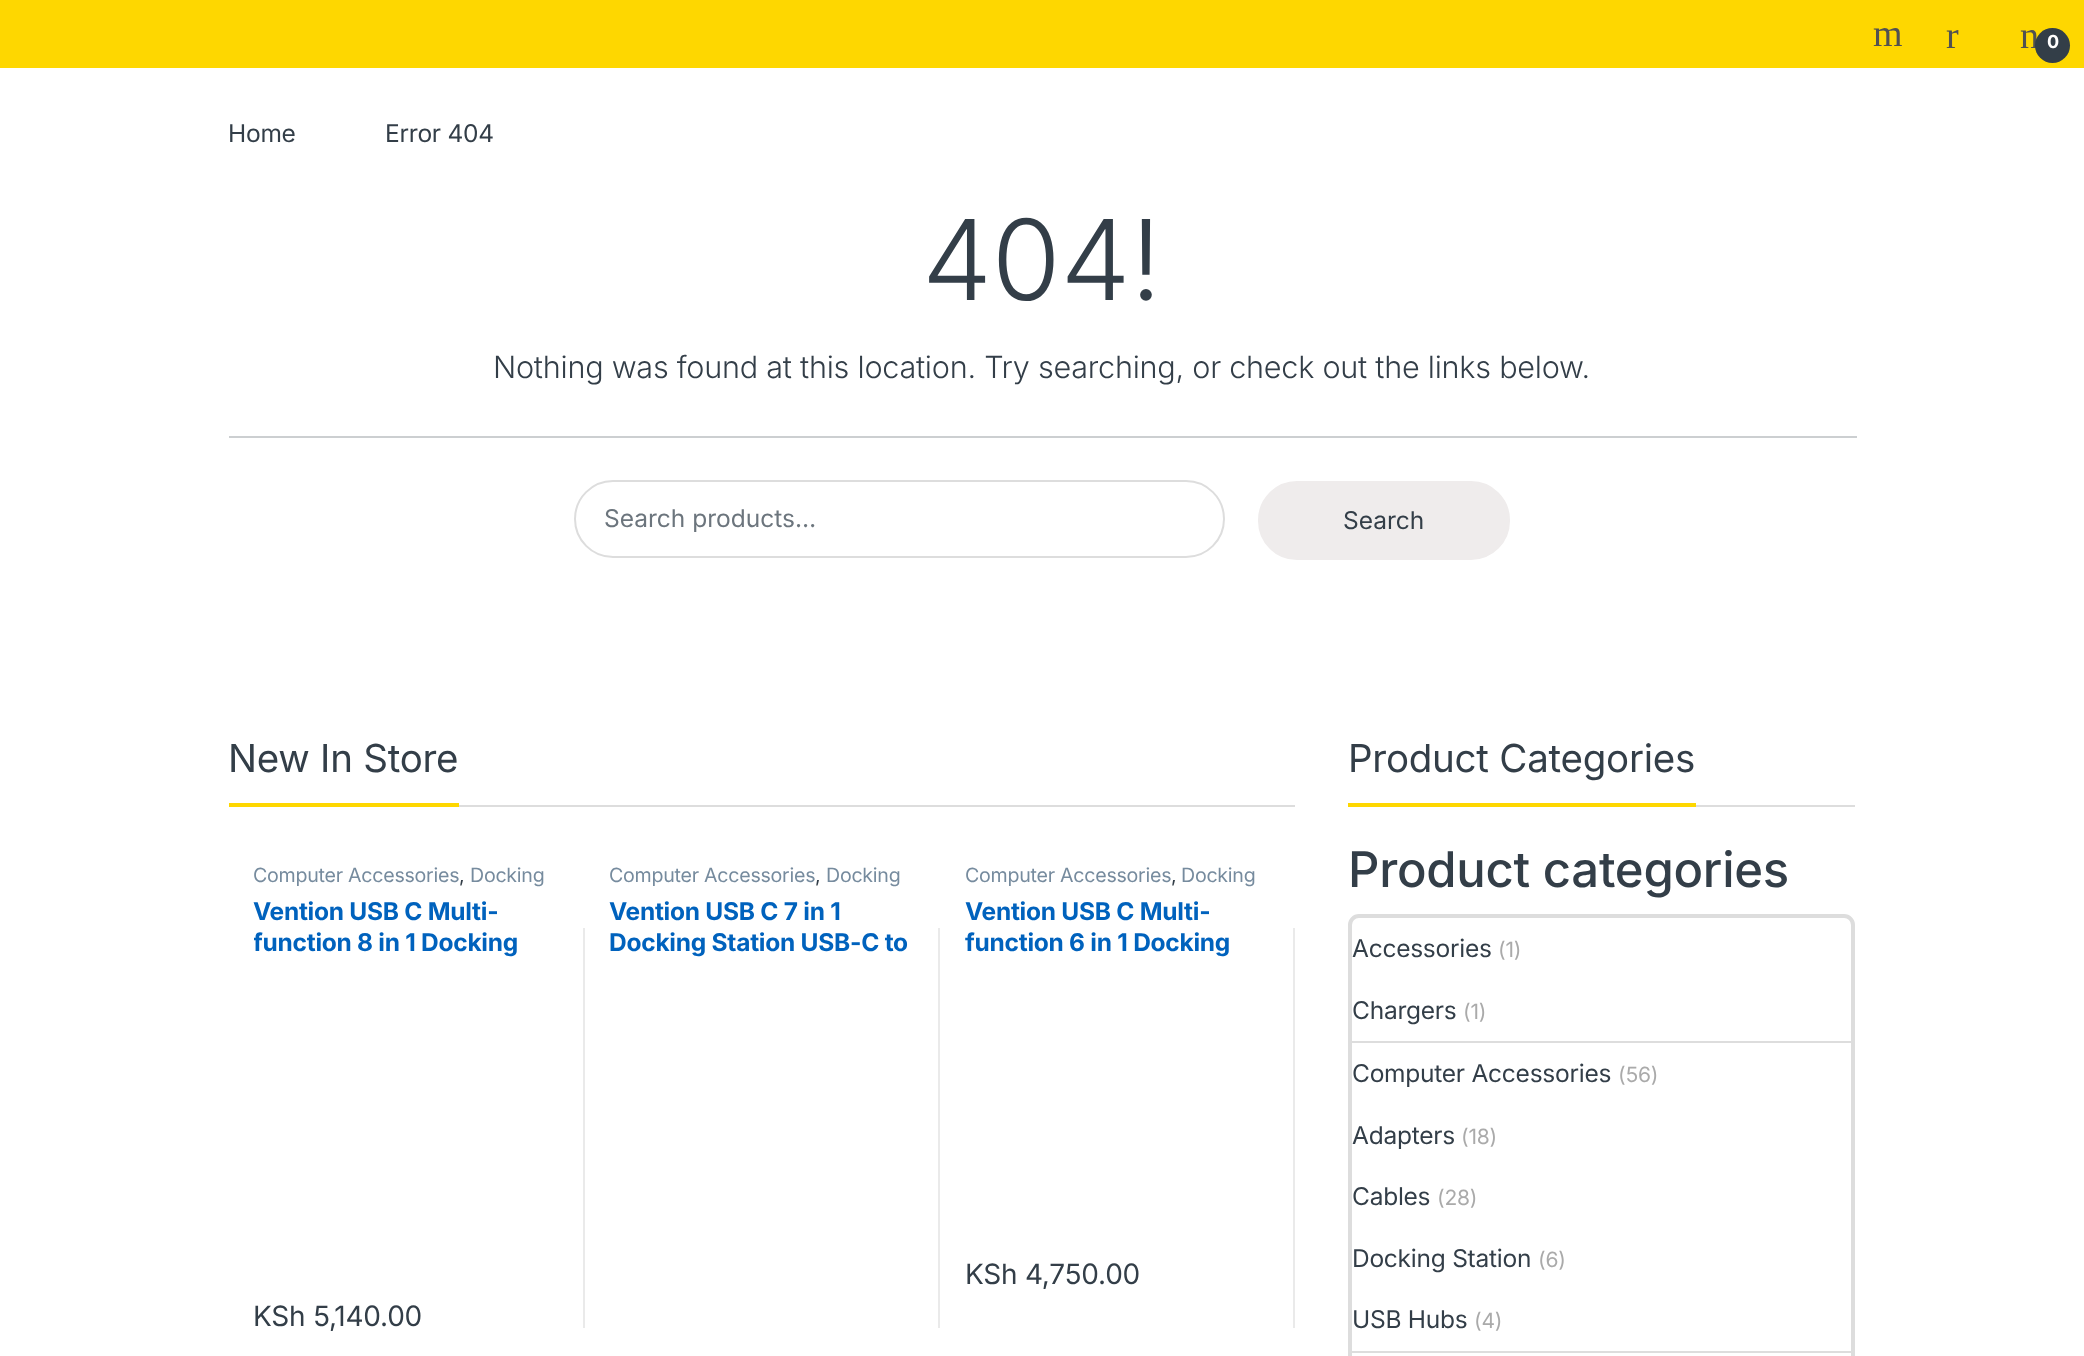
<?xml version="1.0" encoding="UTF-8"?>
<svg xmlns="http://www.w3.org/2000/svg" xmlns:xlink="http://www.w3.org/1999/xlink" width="2084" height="1356">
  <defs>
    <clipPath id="clip1"><rect x="254" y="896" width="306" height="63" /></clipPath>
  </defs>
  <rect width="100%" height="100%" fill="#ffffff" />
  <rect width="2084" height="68" fill="#fed700" />
  <rect x="229" y="436" width="1628" height="2" fill="#cccfd1" />
  <rect x="575" y="481" width="649" height="76" rx="38" fill="none" stroke="#dddddd" stroke-width="2" />
  <rect x="1259" y="482" width="250" height="77" rx="38" fill="#efecec" stroke="#efecec" stroke-width="2" />
  <rect x="459" y="805" width="836" height="2" fill="#dddddd" />
  <rect x="229" y="803" width="230" height="4" fill="#fed700" />
  <rect x="583" y="928" width="2" height="400" fill="#eaeaea" />
  <rect x="938" y="928" width="2" height="400" fill="#eaeaea" />
  <rect x="1293" y="928" width="2" height="400" fill="#eaeaea" />
  <rect x="1696" y="805" width="159" height="2" fill="#dddddd" />
  <rect x="1348" y="803" width="348" height="4" fill="#fed700" />
  <rect x="1350" y="916" width="503" height="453" rx="9" fill="none" stroke="#dddddd" stroke-width="4" />
  <rect x="1351" y="1041" width="501" height="2" fill="#dddddd" />
  <rect x="1351" y="1351" width="501" height="2" fill="#dddddd" />
  <text x="1873" y="46" style="font-family: Liberation Serif; font-size: 38px; letter-spacing: -0.25px; fill: #515151">m</text>
  <text x="1946" y="48" style="font-family: Liberation Serif; font-size: 38px; letter-spacing: -0.25px; fill: #515151">r</text>
  <text x="2020" y="48" style="font-family: Liberation Serif; font-size: 38px; letter-spacing: -0.25px; fill: #515151">n</text>
  <circle cx="2052.5" cy="45.5" r="17.5" fill="#333e48" />
  <text x="2047" y="48" style="font-family: Inter; font-size: 18px; font-weight: bold; letter-spacing: -0.25px; fill: #ffffff">0</text>
  <text x="228" y="142" style="font-family: Inter; font-size: 24.5px; letter-spacing: -0.25px; fill: #333e48">Home</text>
  <text x="385" y="142" style="font-family: Inter; font-size: 24.5px; letter-spacing: -0.25px; fill: #333e48">Error 404</text>
  <text x="922" y="300" style="font-family: Inter; font-size: 111.5px; font-weight: 300; letter-spacing: -0.25px; fill: #333e48">404!</text>
  <text x="493" y="378" style="font-family: Inter; font-size: 30.6px; font-weight: 300; letter-spacing: -0.25px; fill: #333e48">Nothing was found at this location. Try searching, or check out the links below.</text>
  <text x="604" y="527" style="font-family: Inter; font-size: 24.5px; fill: #6c757d">Search products…</text>
  <text x="1343" y="529" style="font-family: Inter; font-size: 24.5px; fill: #333e48">Search</text>
  <text x="228" y="772" style="font-family: Inter; font-size: 38.5px; letter-spacing: -0.25px; fill: #333e48">New In Store</text>
  <text x="253" y="882" style="font-family: Inter; font-size: 19.6px; letter-spacing: -0.25px; fill: #768b9e">Computer Accessories</text>
  <text x="459" y="882" style="font-family: Inter; font-size: 19.6px; letter-spacing: -0.25px; fill: #333e48">,</text>
  <text x="470" y="882" style="font-family: Inter; font-size: 19.6px; letter-spacing: -0.25px; fill: #768b9e">Docking</text>
  <text x="253" y="920" style="font-family: Inter; font-size: 24.5px; font-weight: bold; letter-spacing: -0.25px; fill: #0062bd">Vention USB C Multi-</text>
  <g clip-path="url(#clip1)">
    <text x="253" y="951" style="font-family: Inter; font-size: 24.5px; font-weight: bold; letter-spacing: -0.25px; fill: #0062bd">function 8 in 1</text>
  </g>
  <text x="421" y="951" style="font-family: Inter; font-size: 24.5px; font-weight: bold; letter-spacing: -0.25px; fill: #0062bd">Docking</text>
  <text x="253" y="1326" style="font-family: Inter; font-size: 28px; letter-spacing: -0.25px; fill: #333e48">KSh 5,140.00</text>
  <text x="609" y="882" style="font-family: Inter; font-size: 19.6px; letter-spacing: -0.25px; fill: #768b9e">Computer Accessories</text>
  <text x="815" y="882" style="font-family: Inter; font-size: 19.6px; letter-spacing: -0.25px; fill: #333e48">,</text>
  <text x="826" y="882" style="font-family: Inter; font-size: 19.6px; letter-spacing: -0.25px; fill: #768b9e">Docking</text>
  <text x="609" y="920" style="font-family: Inter; font-size: 24.5px; font-weight: bold; letter-spacing: -0.25px; fill: #0062bd">Vention USB C 7 in 1</text>
  <text x="609" y="951" style="font-family: Inter; font-size: 24.5px; font-weight: bold; letter-spacing: -0.25px; fill: #0062bd">Docking Station USB-C to</text>
  <text x="965" y="882" style="font-family: Inter; font-size: 19.6px; letter-spacing: -0.25px; fill: #768b9e">Computer Accessories</text>
  <text x="1171" y="882" style="font-family: Inter; font-size: 19.6px; letter-spacing: -0.25px; fill: #333e48">,</text>
  <text x="1181" y="882" style="font-family: Inter; font-size: 19.6px; letter-spacing: -0.25px; fill: #768b9e">Docking</text>
  <text x="965" y="920" style="font-family: Inter; font-size: 24.5px; font-weight: bold; letter-spacing: -0.25px; fill: #0062bd">Vention USB C Multi-</text>
  <text x="965" y="951" style="font-family: Inter; font-size: 24.5px; font-weight: bold; letter-spacing: -0.25px; fill: #0062bd">function 6 in 1 Docking</text>
  <text x="965" y="1284" style="font-family: Inter; font-size: 28px; letter-spacing: -0.25px; fill: #333e48">KSh 4,750.00</text>
  <text x="1348" y="772" style="font-family: Inter; font-size: 38.5px; letter-spacing: -0.25px; fill: #333e48">Product Categories</text>
  <text x="1348" y="887" style="font-family: Inter; font-size: 49px; font-weight: 500; letter-spacing: -0.25px; fill: #333e48">Product categories</text>
  <text x="1352" y="957" style="font-family: Inter; font-size: 24.5px; letter-spacing: -0.25px; fill: #333e48">Accessories</text>
  <text x="1498" y="957" style="font-family: Inter; font-size: 21px; letter-spacing: -0.25px; fill: #aaaaaa">(1)</text>
  <text x="1352" y="1019" style="font-family: Inter; font-size: 24.5px; letter-spacing: -0.25px; fill: #333e48">Chargers</text>
  <text x="1463" y="1019" style="font-family: Inter; font-size: 21px; letter-spacing: -0.25px; fill: #aaaaaa">(1)</text>
  <text x="1352" y="1082" style="font-family: Inter; font-size: 24.5px; letter-spacing: -0.25px; fill: #333e48">Computer Accessories</text>
  <text x="1618" y="1082" style="font-family: Inter; font-size: 21px; letter-spacing: -0.25px; fill: #aaaaaa">(56)</text>
  <text x="1352" y="1144" style="font-family: Inter; font-size: 24.5px; letter-spacing: -0.25px; fill: #333e48">Adapters</text>
  <text x="1461" y="1144" style="font-family: Inter; font-size: 21px; letter-spacing: -0.25px; fill: #aaaaaa">(18)</text>
  <text x="1352" y="1205" style="font-family: Inter; font-size: 24.5px; letter-spacing: -0.25px; fill: #333e48">Cables</text>
  <text x="1437" y="1205" style="font-family: Inter; font-size: 21px; letter-spacing: -0.25px; fill: #aaaaaa">(28)</text>
  <text x="1352" y="1267" style="font-family: Inter; font-size: 24.5px; letter-spacing: -0.25px; fill: #333e48">Docking Station</text>
  <text x="1538" y="1267" style="font-family: Inter; font-size: 21px; letter-spacing: -0.25px; fill: #aaaaaa">(6)</text>
  <text x="1352" y="1328" style="font-family: Inter; font-size: 24.5px; letter-spacing: -0.25px; fill: #333e48">USB Hubs</text>
  <text x="1474" y="1328" style="font-family: Inter; font-size: 21px; letter-spacing: -0.25px; fill: #aaaaaa">(4)</text>
</svg>
